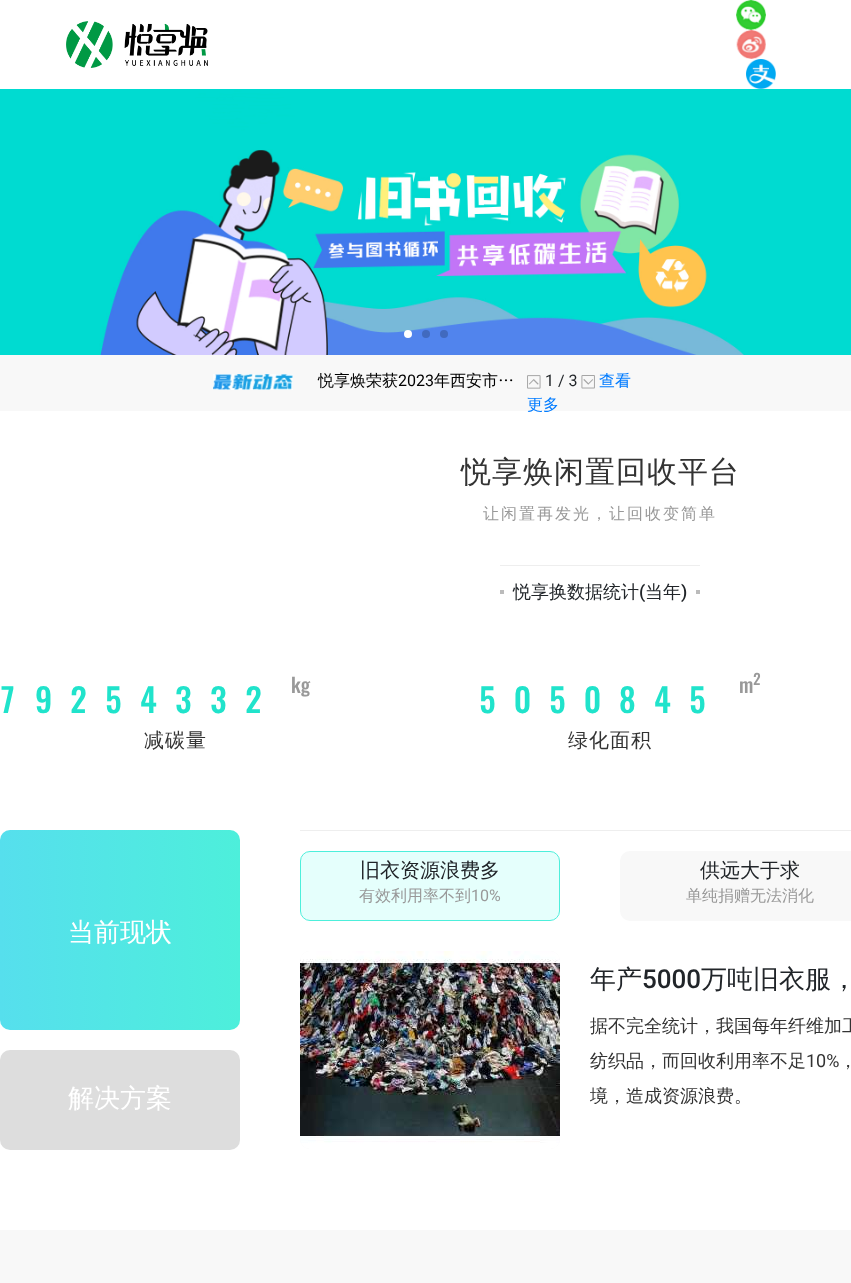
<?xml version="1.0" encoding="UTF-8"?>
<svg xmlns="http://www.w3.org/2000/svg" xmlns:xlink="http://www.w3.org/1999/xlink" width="851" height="1283">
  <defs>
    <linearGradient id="g1" gradientUnits="userSpaceOnUse" x1="240" y1="930" x2="0" y2="930"><stop offset="0" stop-color="#4defdb" /><stop offset="1" stop-color="#56dfed" /></linearGradient>
  </defs>
  <rect width="100%" height="100%" fill="#ffffff" />
  <image x="66" y="21" width="142" height="47" xlink:href="image1.png" />
  <image x="736" y="0" width="30" height="30" xlink:href="image2.png" />
  <image x="736" y="30" width="30" height="29" xlink:href="image3.png" />
  <image x="746" y="59" width="30" height="30" xlink:href="image4.png" />
  <image x="0" y="89" width="851" height="266" xlink:href="image5.png" />
  <circle cx="408" cy="334" r="4" fill="#ffffff" />
  <circle cx="426" cy="334" r="4" fill="#416abe" />
  <circle cx="444" cy="334" r="4" fill="#416abe" />
  <rect y="355" width="851" height="56" fill="#f8f8f8" />
  <image x="213" y="374" width="80" height="16" xlink:href="image6.png" />
  <image x="527" y="375" width="14" height="14" xlink:href="image7.png" />
  <image x="581" y="375" width="14" height="14" xlink:href="image8.png" />
  <rect x="500" y="565" width="200" height="1" fill="#eeeeee" />
  <rect x="500" y="590" width="4" height="4" fill="#bbbbbb" />
  <rect x="696" y="590" width="4" height="4" fill="#bbbbbb" />
  <rect y="830" width="240" height="200" rx="10" fill="url(#g1)" />
  <rect y="1050" width="240" height="100" rx="10" fill="#dddddd" />
  <rect x="300" y="830" width="551" height="1" fill="#eeeeee" />
  <rect x="300.5" y="851.5" width="259" height="69" rx="9.5" fill="#e5fffc" stroke="#4defdb" />
  <rect x="620" y="851" width="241" height="70" rx="10" fill="#f8f8f8" />
  <rect x="300" y="951" width="260" height="198" rx="10" fill="#f8f8f8" />
  <image x="300" y="951" width="260" height="198" xlink:href="image9.png" />
  <rect y="1230" width="851" height="53" fill="#f8f8f8" />
  <text x="318" y="386" style="font-family: WenQuanYi Zen Hei; font-size: 16px; font-weight: 500; fill: #000000">悦享焕荣获</text>
  <text x="398" y="386" style="font-family: Roboto; font-size: 16px; fill: #000000">2023</text>
  <text x="434" y="386" style="font-family: WenQuanYi Zen Hei; font-size: 16px; font-weight: 500; fill: #000000">年西安市…</text>
  <text x="545" y="386" style="font-family: Roboto; font-size: 16px; fill: #212529">1 / 3</text>
  <text x="599" y="386" style="font-family: WenQuanYi Zen Hei; font-size: 16px; font-weight: 500; fill: #007bff">查看</text>
  <text x="527" y="410" style="font-family: WenQuanYi Zen Hei; font-size: 16px; font-weight: 500; fill: #007bff">更多</text>
  <text x="461" y="482" style="font-family: WenQuanYi Zen Hei; font-size: 30px; font-weight: 500; letter-spacing: 1px; fill: #333333">悦享焕闲置回收平台</text>
  <text x="483" y="519" style="font-family: WenQuanYi Zen Hei; font-size: 16px; font-weight: 500; letter-spacing: 2px; fill: #999999">让闲置再发光，让回收变简单</text>
  <text x="513" y="598" style="font-family: WenQuanYi Zen Hei; font-size: 18px; font-weight: 500; fill: #212529">悦享换数据统计</text>
  <text x="639" y="598" style="font-family: Roboto; font-size: 18px; font-weight: 500; fill: #212529">(</text>
  <text x="645" y="598" style="font-family: WenQuanYi Zen Hei; font-size: 18px; font-weight: 500; fill: #212529">当年</text>
  <text x="681" y="598" style="font-family: Roboto; font-size: 18px; font-weight: 500; fill: #212529">)</text>
  <text x="0" y="713" style="font-family: Oswald; font-size: 33px; font-weight: 500; fill: #20e3cb">7</text>
  <text x="35" y="713" style="font-family: Oswald; font-size: 33px; font-weight: 500; fill: #20e3cb">9</text>
  <text x="70" y="713" style="font-family: Oswald; font-size: 33px; font-weight: 500; fill: #20e3cb">2</text>
  <text x="105" y="713" style="font-family: Oswald; font-size: 33px; font-weight: 500; fill: #20e3cb">5</text>
  <text x="140" y="713" style="font-family: Oswald; font-size: 33px; font-weight: 500; fill: #20e3cb">4</text>
  <text x="175" y="713" style="font-family: Oswald; font-size: 33px; font-weight: 500; fill: #20e3cb">3</text>
  <text x="210" y="713" style="font-family: Oswald; font-size: 33px; font-weight: 500; fill: #20e3cb">3</text>
  <text x="245" y="713" style="font-family: Oswald; font-size: 33px; font-weight: 500; fill: #20e3cb">2</text>
  <text x="291" y="693" style="font-family: Oswald; font-size: 20px; font-weight: 500; fill: #999999">kg</text>
  <text x="144" y="747" style="font-family: WenQuanYi Zen Hei; font-size: 20px; font-weight: 500; letter-spacing: 1px; fill: #333333">减碳量</text>
  <text x="753" y="685" style="font-family: Oswald; font-size: 15px; font-weight: 500; fill: #999999">2</text>
  <text x="739" y="693" style="font-family: Oswald; font-size: 20px; font-weight: 500; fill: #999999">m</text>
  <text x="479" y="713" style="font-family: Oswald; font-size: 33px; font-weight: 500; fill: #20e3cb">5</text>
  <text x="514" y="713" style="font-family: Oswald; font-size: 33px; font-weight: 500; fill: #20e3cb">0</text>
  <text x="549" y="713" style="font-family: Oswald; font-size: 33px; font-weight: 500; fill: #20e3cb">5</text>
  <text x="584" y="713" style="font-family: Oswald; font-size: 33px; font-weight: 500; fill: #20e3cb">0</text>
  <text x="619" y="713" style="font-family: Oswald; font-size: 33px; font-weight: 500; fill: #20e3cb">8</text>
  <text x="654" y="713" style="font-family: Oswald; font-size: 33px; font-weight: 500; fill: #20e3cb">4</text>
  <text x="689" y="713" style="font-family: Oswald; font-size: 33px; font-weight: 500; fill: #20e3cb">5</text>
  <text x="568" y="747" style="font-family: WenQuanYi Zen Hei; font-size: 20px; font-weight: 500; letter-spacing: 1px; fill: #333333">绿化面积</text>
  <text x="68" y="941" style="font-family: WenQuanYi Zen Hei; font-size: 26px; font-weight: 500; fill: #ffffff">当前现状</text>
  <text x="68" y="1107" style="font-family: WenQuanYi Zen Hei; font-size: 26px; font-weight: 500; fill: #ffffff">解决方案</text>
  <text x="360" y="877" style="font-family: WenQuanYi Zen Hei; font-size: 20px; font-weight: 500; fill: #212529">旧衣资源浪费多</text>
  <text x="359" y="901" style="font-family: WenQuanYi Zen Hei; font-size: 16px; font-weight: 500; fill: #999999">有效利用率不到</text>
  <text x="471" y="901" style="font-family: Roboto; font-size: 16px; fill: #999999">10%</text>
  <text x="700" y="877" style="font-family: WenQuanYi Zen Hei; font-size: 20px; font-weight: 500; fill: #212529">供远大于求</text>
  <text x="686" y="901" style="font-family: WenQuanYi Zen Hei; font-size: 16px; font-weight: 500; fill: #999999">单纯捐赠无法消化</text>
  <text x="590" y="988" style="font-family: WenQuanYi Zen Hei; font-size: 26px; font-weight: 500; fill: #212529">年产</text>
  <text x="642" y="988" style="font-family: Roboto; font-size: 26px; font-weight: 500; fill: #212529">5000</text>
  <text x="701" y="988" style="font-family: WenQuanYi Zen Hei; font-size: 26px; font-weight: 500; fill: #212529">万吨旧衣服，</text>
  <text x="590" y="1032" style="font-family: WenQuanYi Zen Hei; font-size: 18px; font-weight: 500; fill: #333333">据不完全统计，我国每年纤维加工</text>
  <text x="590" y="1067" style="font-family: WenQuanYi Zen Hei; font-size: 18px; font-weight: 500; fill: #333333">纺织品，而回收利用率不足</text>
  <text x="806" y="1067" style="font-family: Roboto; font-size: 18px; fill: #333333">10%</text>
  <text x="839" y="1067" style="font-family: WenQuanYi Zen Hei; font-size: 18px; font-weight: 500; fill: #333333">，</text>
  <text x="590" y="1102" style="font-family: WenQuanYi Zen Hei; font-size: 18px; font-weight: 500; fill: #333333">境，造成资源浪费。</text>
</svg>
